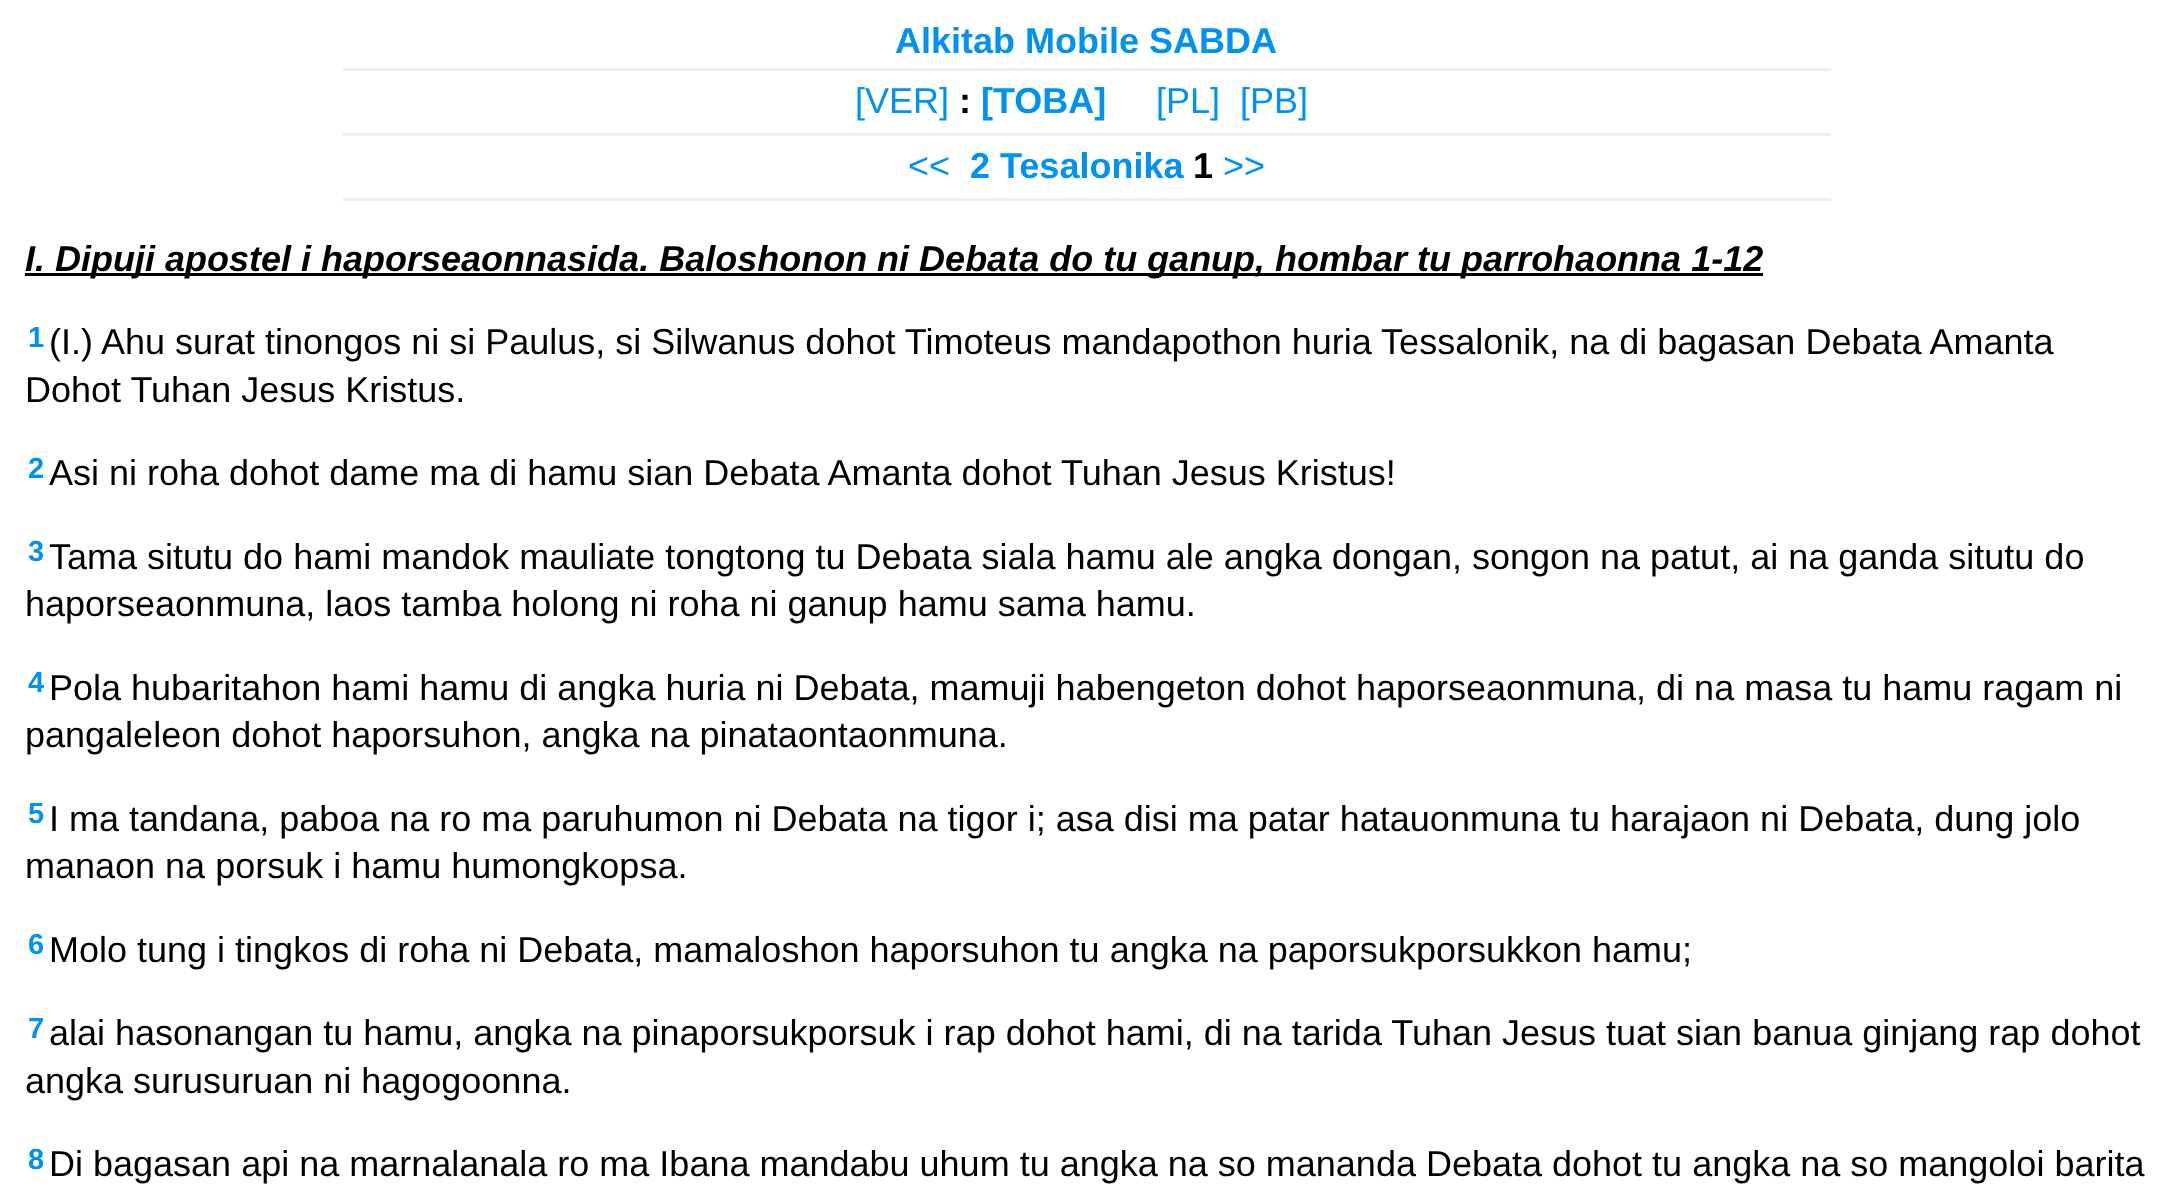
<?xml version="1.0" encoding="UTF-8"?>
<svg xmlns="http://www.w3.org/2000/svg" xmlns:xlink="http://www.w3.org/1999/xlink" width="2171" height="1191">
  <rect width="100%" height="100%" fill="#ffffff" />
  <rect x="343" y="68" width="1488" height="3" fill="#eeeeee" />
  <rect x="343" y="133" width="1488" height="3" fill="#eeeeee" />
  <rect x="343" y="198" width="1488" height="3" fill="#eeeeee" />
  <rect x="25" y="273" width="1738" height="3" fill="#000000" />
  <text x="895" y="53" style="font-family: Liberation Sans; font-size: 36px; font-weight: bold; fill: #0092f2">Alkitab Mobile SABDA</text>
  <text x="855" y="113" style="font-family: Liberation Sans; font-size: 36px; fill: #0092f2">[VER]</text>
  <text x="959" y="113" style="font-family: Liberation Sans; font-size: 36px; font-weight: bold; fill: #000000">:</text>
  <text x="981" y="113" style="font-family: Liberation Sans; font-size: 36px; font-weight: bold; fill: #0092f2">[TOBA]</text>
  <text x="1156" y="113" style="font-family: Liberation Sans; font-size: 36px; fill: #0092f2">[PL]</text>
  <text x="1240" y="113" style="font-family: Liberation Sans; font-size: 36px; fill: #0092f2">[PB]</text>
  <text x="908" y="178" style="font-family: Liberation Sans; font-size: 36px; fill: #0092f2">&lt;&lt;</text>
  <text x="970" y="178" style="font-family: Liberation Sans; font-size: 36px; font-weight: bold; fill: #0092f2">2 Tesalonika</text>
  <text x="1193" y="178" style="font-family: Liberation Sans; font-size: 36px; font-weight: bold; fill: #000000">1</text>
  <text x="1223" y="178" style="font-family: Liberation Sans; font-size: 36px; fill: #0092f2">&gt;&gt;</text>
  <text x="25" y="271" style="font-family: Liberation Sans; font-size: 36px; font-weight: bold; font-style: italic; fill: #000000">I. Dipuji apostel i haporseaonnasida. Baloshonon ni Debata do tu ganup, hombar tu parrohaonna 1-12</text>
  <text x="28" y="347" style="font-family: Liberation Sans; font-size: 29px; font-weight: bold; fill: #0092f2">1</text>
  <text x="49" y="354" style="font-family: Liberation Sans; font-size: 36px; fill: #000000">(I.) Ahu surat tinongos ni si Paulus, si Silwanus dohot Timoteus mandapothon huria Tessalonik, na di bagasan Debata Amanta</text>
  <text x="25" y="402" style="font-family: Liberation Sans; font-size: 36px; fill: #000000">Dohot Tuhan Jesus Kristus.</text>
  <text x="28" y="478" style="font-family: Liberation Sans; font-size: 29px; font-weight: bold; fill: #0092f2">2</text>
  <text x="49" y="485" style="font-family: Liberation Sans; font-size: 36px; fill: #000000">Asi ni roha dohot dame ma di hamu sian Debata Amanta dohot Tuhan Jesus Kristus!</text>
  <text x="28" y="561" style="font-family: Liberation Sans; font-size: 29px; font-weight: bold; fill: #0092f2">3</text>
  <text x="49" y="569" style="font-family: Liberation Sans; font-size: 36px; fill: #000000">Tama situtu do hami mandok mauliate tongtong tu Debata siala hamu ale angka dongan, songon na patut, ai na ganda situtu do</text>
  <text x="25" y="616" style="font-family: Liberation Sans; font-size: 36px; fill: #000000">haporseaonmuna, laos tamba holong ni roha ni ganup hamu sama hamu.</text>
  <text x="28" y="692" style="font-family: Liberation Sans; font-size: 29px; font-weight: bold; fill: #0092f2">4</text>
  <text x="49" y="700" style="font-family: Liberation Sans; font-size: 36px; fill: #000000">Pola hubaritahon hami hamu di angka huria ni Debata, mamuji habengeton dohot haporseaonmuna, di na masa tu hamu ragam ni</text>
  <text x="25" y="747" style="font-family: Liberation Sans; font-size: 36px; fill: #000000">pangaleleon dohot haporsuhon, angka na pinataontaonmuna.</text>
  <text x="28" y="823" style="font-family: Liberation Sans; font-size: 29px; font-weight: bold; fill: #0092f2">5</text>
  <text x="49" y="831" style="font-family: Liberation Sans; font-size: 36px; fill: #000000">I ma tandana, paboa na ro ma paruhumon ni Debata na tigor i; asa disi ma patar hatauonmuna tu harajaon ni Debata, dung jolo</text>
  <text x="25" y="878" style="font-family: Liberation Sans; font-size: 36px; fill: #000000">manaon na porsuk i hamu humongkopsa.</text>
  <text x="28" y="954" style="font-family: Liberation Sans; font-size: 29px; font-weight: bold; fill: #0092f2">6</text>
  <text x="49" y="962" style="font-family: Liberation Sans; font-size: 36px; fill: #000000">Molo tung i tingkos di roha ni Debata, mamaloshon haporsuhon tu angka na paporsukporsukkon hamu;</text>
  <text x="28" y="1038" style="font-family: Liberation Sans; font-size: 29px; font-weight: bold; fill: #0092f2">7</text>
  <text x="49" y="1045" style="font-family: Liberation Sans; font-size: 36px; fill: #000000">alai hasonangan tu hamu, angka na pinaporsukporsuk i rap dohot hami, di na tarida Tuhan Jesus tuat sian banua ginjang rap dohot</text>
  <text x="25" y="1093" style="font-family: Liberation Sans; font-size: 36px; fill: #000000">angka surusuruan ni hagogoonna.</text>
  <text x="28" y="1169" style="font-family: Liberation Sans; font-size: 29px; font-weight: bold; fill: #0092f2">8</text>
  <text x="49" y="1176" style="font-family: Liberation Sans; font-size: 36px; fill: #000000">Di bagasan api na marnalanala ro ma Ibana mandabu uhum tu angka na so mananda Debata dohot tu angka na so mangoloi barita</text>
</svg>
